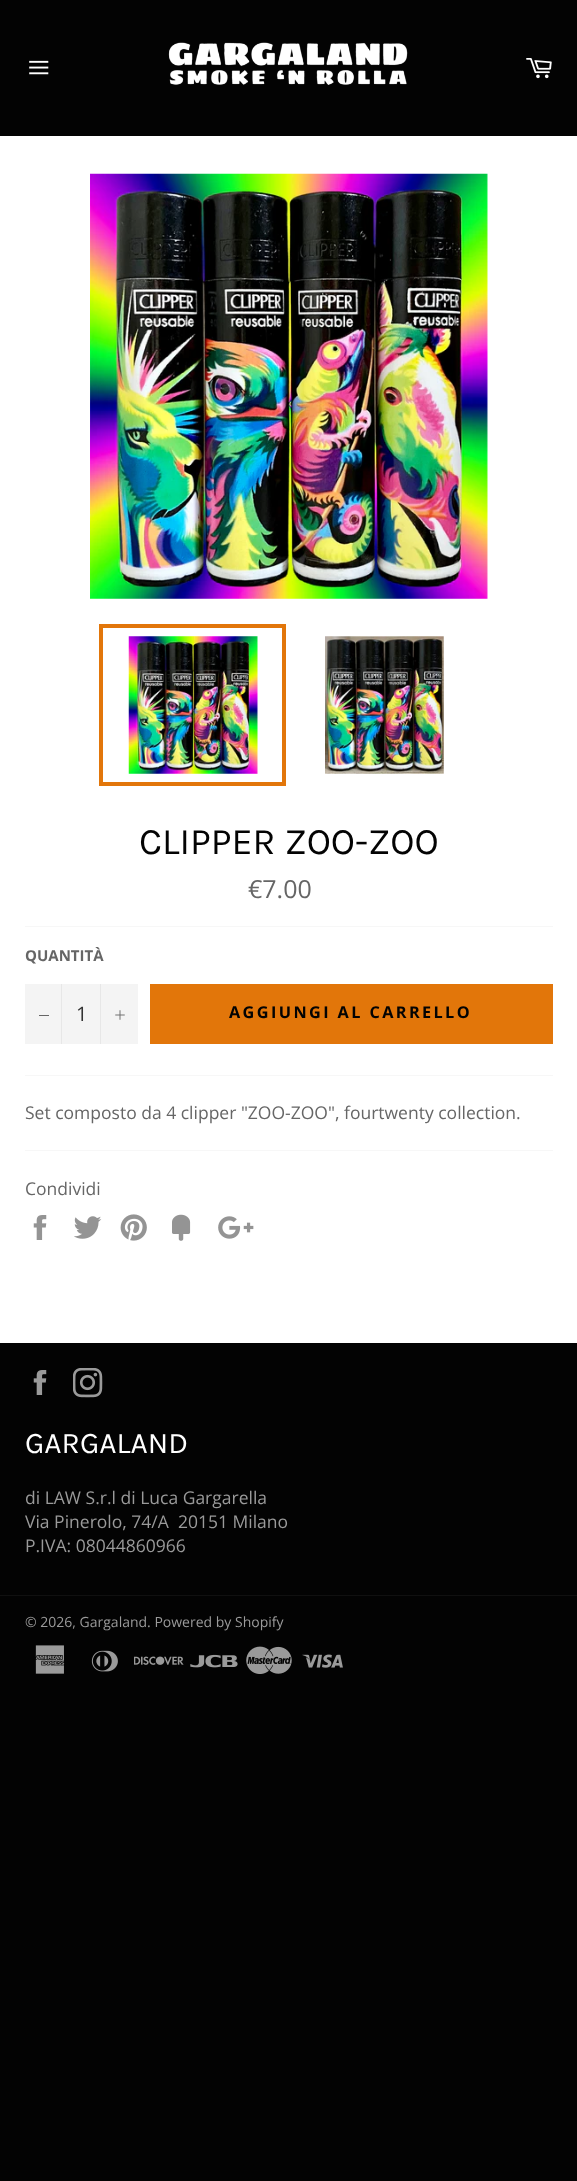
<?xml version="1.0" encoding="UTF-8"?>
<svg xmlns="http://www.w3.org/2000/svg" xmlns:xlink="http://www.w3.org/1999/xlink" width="577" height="2181">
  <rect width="100%" height="100%" fill="#030303" />
  <rect y="136" width="577" height="1207" fill="#ffffff" />
  <image x="29" y="60" width="20" height="15" xlink:href="image1.png" />
  <image x="168" y="42" width="240" height="43" xlink:href="image2.png" />
  <image x="526" y="58" width="26" height="21" xlink:href="image3.png" />
  <image x="90" y="173" width="398" height="426" xlink:href="image4.png" />
  <image x="128" y="636" width="130" height="138" xlink:href="image5.png" />
  <rect x="101" y="626" width="183" height="158" fill="none" stroke="#e2760a" stroke-width="4" />
  <image x="325" y="636" width="119" height="138" xlink:href="image6.png" />
  <rect x="25" y="926" width="528" height="1" fill="#f7f7f7" />
  <rect x="25" y="984" width="113" height="60" fill="#f4f4f4" />
  <rect x="61" y="984" width="1" height="60" fill="#e7e7e7" />
  <rect x="39" y="1015" width="10" height="1" fill="#666666" />
  <rect x="100" y="984" width="1" height="60" fill="#e7e7e7" />
  <image x="115" y="1010" width="10" height="10" xlink:href="image7.png" />
  <rect x="150" y="984" width="403" height="60" fill="#e2760a" />
  <rect x="25" y="1075" width="528" height="1" fill="#f7f7f7" />
  <rect x="25" y="1150" width="528" height="1" fill="#f7f7f7" />
  <image x="33" y="1215" width="14" height="25" xlink:href="image8.png" />
  <image x="74" y="1216" width="28" height="23" xlink:href="image9.png" />
  <image x="120" y="1214" width="27" height="27" xlink:href="image10.png" />
  <image x="172" y="1214" width="19" height="27" xlink:href="image11.png" />
  <image x="218" y="1216" width="36" height="23" xlink:href="image12.png" />
  <image x="33" y="1370" width="14" height="25" xlink:href="image13.png" />
  <image x="73" y="1368" width="30" height="30" xlink:href="image14.png" />
  <rect y="1595" width="577" height="1" fill="#101010" />
  <image x="35" y="1645" width="30" height="29" xlink:href="image15.png" />
  <image x="91" y="1650" width="27" height="22" xlink:href="image16.png" />
  <image x="134" y="1656" width="50" height="9" xlink:href="image17.png" />
  <image x="190" y="1654" width="48" height="14" xlink:href="image18.png" />
  <image x="246" y="1646" width="46" height="28" xlink:href="image19.png" />
  <image x="302" y="1654" width="41" height="14" xlink:href="image20.png" />
  <text x="139" y="854" style="font-family: Karla; font-size: 37.5px; fill: #030303">CLIPPER ZOO-ZOO</text>
  <text x="248" y="898" style="font-family: Open Sans; font-size: 25px; fill: #666666">€7.00</text>
  <text x="25" y="961" style="font-family: Open Sans; font-size: 15px; font-weight: bold; fill: #666666">QUANTITÀ</text>
  <text x="76" y="1021" style="font-family: Open Sans; font-size: 20px; fill: #333333">1</text>
  <text x="229" y="1018" style="font-family: Open Sans; font-size: 16.25px; font-weight: bold; letter-spacing: 2.4px; fill: #030303">AGGIUNGI AL CARRELLO</text>
  <text x="25" y="1119" style="font-family: Open Sans; font-size: 17.5px; fill: #666666">Set composto da 4 clipper "ZOO-ZOO", fourtwenty collection.</text>
  <text x="25" y="1195" style="font-family: Open Sans; font-size: 17.5px; fill: #666666">Condividi</text>
  <text x="25" y="1453" style="font-family: Karla; font-size: 30px; fill: #ffffff">GARGALAND</text>
  <text x="25" y="1504" style="font-family: Open Sans; font-size: 17.5px; fill: #9a9a9a">di LAW S.r.l di Luca Gargarella</text>
  <text x="25" y="1528" style="font-family: Open Sans; font-size: 17.5px; fill: #9a9a9a" xml:space="preserve">Via Pinerolo, 74/A  20151 Milano</text>
  <text x="25" y="1552" style="font-family: Open Sans; font-size: 17.5px; fill: #9a9a9a">P.IVA: 08044860966</text>
  <text x="25" y="1627" style="font-family: Open Sans; font-size: 14px; fill: #9a9a9a">© 2026, Gargaland. Powered by Shopify</text>
</svg>
